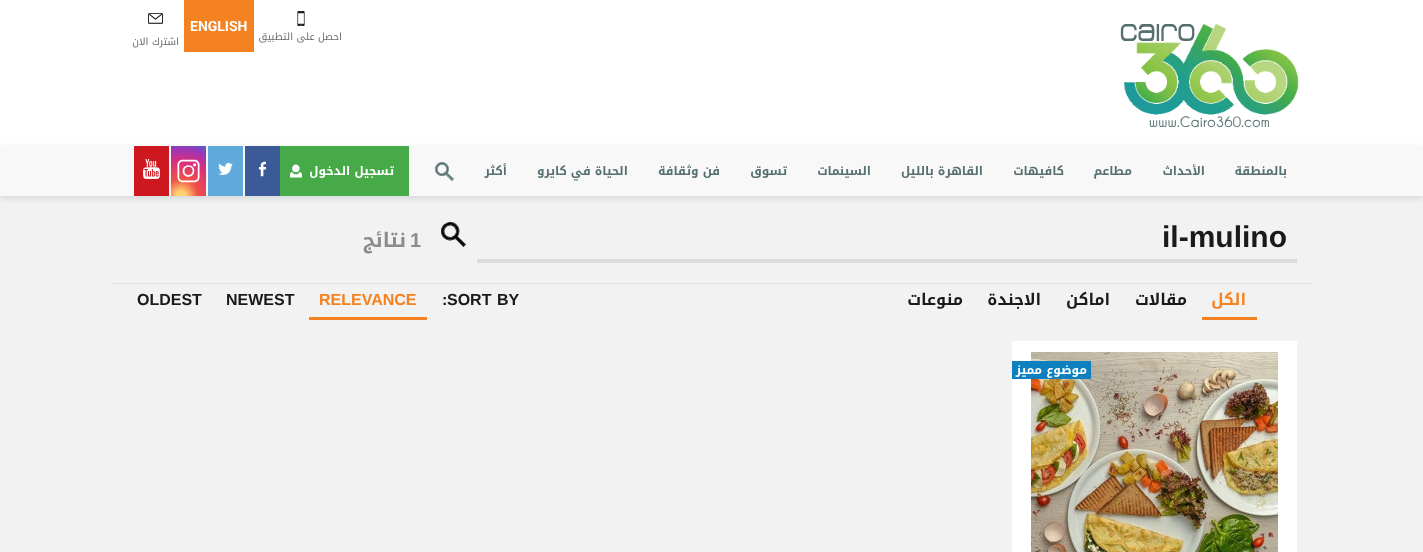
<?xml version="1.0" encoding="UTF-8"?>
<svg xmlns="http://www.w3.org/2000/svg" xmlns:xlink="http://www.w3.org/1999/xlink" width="1423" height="552">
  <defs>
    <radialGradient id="g1" gradientUnits="userSpaceOnUse" cx="181" cy="196" r="56"><stop offset="0.08" stop-color="#fed373" /><stop offset="0.3" stop-color="#f15245" /><stop offset="0.62" stop-color="#d92e7f" /><stop offset="0.85" stop-color="#9b36b7" /><stop offset="1" stop-color="#515ecf" /></radialGradient>
  </defs>
  <rect width="100%" height="100%" fill="#f2f2f2" />
  <rect width="1423" height="146" fill="#ffffff" />
  <image x="1120" y="23" width="179" height="105" xlink:href="image1.png" />
  <rect x="184" width="70" height="52" fill="#f58220" />
  <image x="297" y="11" width="8" height="15" xlink:href="image2.png" />
  <image x="148" y="13" width="15" height="11" xlink:href="image3.png" />
  <rect y="148" width="1423" height="50" fill="#55706f" fill-opacity="0.21" filter="blur(3px)" />
  <rect y="146" width="1423" height="50" fill="#f8f8f8" />
  <image x="435" y="162" width="19" height="19" xlink:href="image4.png" />
  <rect x="280" y="146" width="129" height="50" fill="#47aa48" />
  <image x="290" y="164" width="12" height="14" xlink:href="image5.png" />
  <rect x="245" y="146" width="35" height="50" fill="#3d5a98" />
  <image x="259" y="161" width="7" height="16" xlink:href="image6.png" />
  <rect x="208" y="146" width="35" height="50" fill="#5fa9dd" />
  <image x="218" y="163" width="15" height="12" xlink:href="image7.png" />
  <rect x="171" y="146" width="35" height="50" fill="url(#g1)" />
  <image x="177" y="159" width="23" height="24" xlink:href="image8.png" />
  <rect x="134" y="146" width="35" height="50" fill="#cc181e" />
  <image x="143" y="159" width="17" height="20" xlink:href="image9.png" />
  <rect x="112" y="283" width="1200" height="1" fill="#e2e2e2" />
  <rect x="477" y="259" width="820" height="4" fill="#dddddd" />
  <image x="441" y="222" width="25" height="25" xlink:href="image10.png" />
  <rect x="1202" y="317" width="55" height="3" fill="#f58220" />
  <rect x="309" y="317" width="118" height="3" fill="#f58220" />
  <rect x="1012" y="341" width="285" height="211" fill="#ffffff" />
  <image x="1031" y="352" width="247" height="200" xlink:href="image11.png" />
  <rect x="1012" y="361" width="79" height="18" fill="#0e80bf" />
  <text x="190" y="31" style="font-family: Roboto; font-size: 14px; font-weight: bold; fill: #ffffff">ENGLISH</text>
  <text x="342" y="40" style="font-family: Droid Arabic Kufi; font-size: 10px; direction: rtl; fill: #6a6b6d">احصل على التطبيق</text>
  <text x="179" y="45" style="font-family: Droid Arabic Kufi; font-size: 10px; direction: rtl; fill: #6a6b6d">اشترك الان</text>
  <text x="1287" y="175" style="font-family: Droid Arabic Kufi; font-size: 12px; font-weight: bold; direction: rtl; fill: #55706f">بالمنطقة</text>
  <text x="1205" y="175" style="font-family: Droid Arabic Kufi; font-size: 12px; font-weight: bold; direction: rtl; fill: #55706f">الأحداث</text>
  <text x="1132" y="175" style="font-family: Droid Arabic Kufi; font-size: 12px; font-weight: bold; direction: rtl; fill: #55706f">مطاعم</text>
  <text x="1064" y="175" style="font-family: Droid Arabic Kufi; font-size: 12px; font-weight: bold; direction: rtl; fill: #55706f">كافيهات</text>
  <text x="983" y="175" style="font-family: Droid Arabic Kufi; font-size: 12px; font-weight: bold; direction: rtl; fill: #55706f">القاهرة بالليل</text>
  <text x="871" y="175" style="font-family: Droid Arabic Kufi; font-size: 12px; font-weight: bold; direction: rtl; fill: #55706f">السينمات</text>
  <text x="787" y="175" style="font-family: Droid Arabic Kufi; font-size: 12px; font-weight: bold; direction: rtl; fill: #55706f">تسوق</text>
  <text x="720" y="175" style="font-family: Droid Arabic Kufi; font-size: 12px; font-weight: bold; direction: rtl; fill: #55706f">فن وثقافة</text>
  <text x="628" y="175" style="font-family: Droid Arabic Kufi; font-size: 12px; font-weight: bold; direction: rtl; fill: #55706f">الحياة في كايرو</text>
  <text x="507" y="175" style="font-family: Droid Arabic Kufi; font-size: 12px; font-weight: bold; direction: rtl; fill: #55706f">أكثر</text>
  <text x="394" y="175" style="font-family: Droid Arabic Kufi; font-size: 12px; font-weight: bold; direction: rtl; fill: #ffffff">تسجيل الدخول</text>
  <text x="1162" y="247" style="font-family: Liberation Sans; font-size: 30px; font-weight: bold; fill: #1a1a1a">il-mulino</text>
  <text x="410" y="247" style="font-family: Liberation Sans; font-size: 20px; font-weight: bold; fill: #8c8c8c">1</text>
  <text x="406" y="247" style="font-family: Droid Arabic Kufi; font-size: 20px; font-weight: bold; direction: rtl; fill: #8c8c8c">نتائج</text>
  <text x="1246" y="305" style="font-family: Droid Arabic Kufi; font-size: 16px; font-weight: bold; direction: rtl; fill: #f58220">الكل</text>
  <text x="1187" y="305" style="font-family: Droid Arabic Kufi; font-size: 16px; font-weight: bold; direction: rtl; fill: #1a1a1a">مقالات</text>
  <text x="1110" y="305" style="font-family: Droid Arabic Kufi; font-size: 16px; font-weight: bold; direction: rtl; fill: #1a1a1a">اماكن</text>
  <text x="1041" y="305" style="font-family: Droid Arabic Kufi; font-size: 16px; font-weight: bold; direction: rtl; fill: #1a1a1a">الاجندة</text>
  <text x="963" y="305" style="font-family: Droid Arabic Kufi; font-size: 16px; font-weight: bold; direction: rtl; fill: #1a1a1a">منوعات</text>
  <text x="447" y="305" word-spacing="1" style="font-family: Liberation Sans; font-size: 16px; font-weight: bold; fill: #1a1a1a">SORT BY</text>
  <text x="442" y="305" style="font-family: Liberation Sans; font-size: 16px; font-weight: bold; fill: #1a1a1a">:</text>
  <text x="319" y="305" style="font-family: Liberation Sans; font-size: 16px; font-weight: bold; fill: #f58220">RELEVANCE</text>
  <text x="226" y="305" style="font-family: Liberation Sans; font-size: 16px; font-weight: bold; fill: #1a1a1a">NEWEST</text>
  <text x="137" y="305" style="font-family: Liberation Sans; font-size: 16px; font-weight: bold; fill: #1a1a1a">OLDEST</text>
  <text x="1087" y="374" style="font-family: Droid Arabic Kufi; font-size: 12px; font-weight: bold; direction: rtl; fill: #ffffff">موضوع مميز</text>
</svg>
